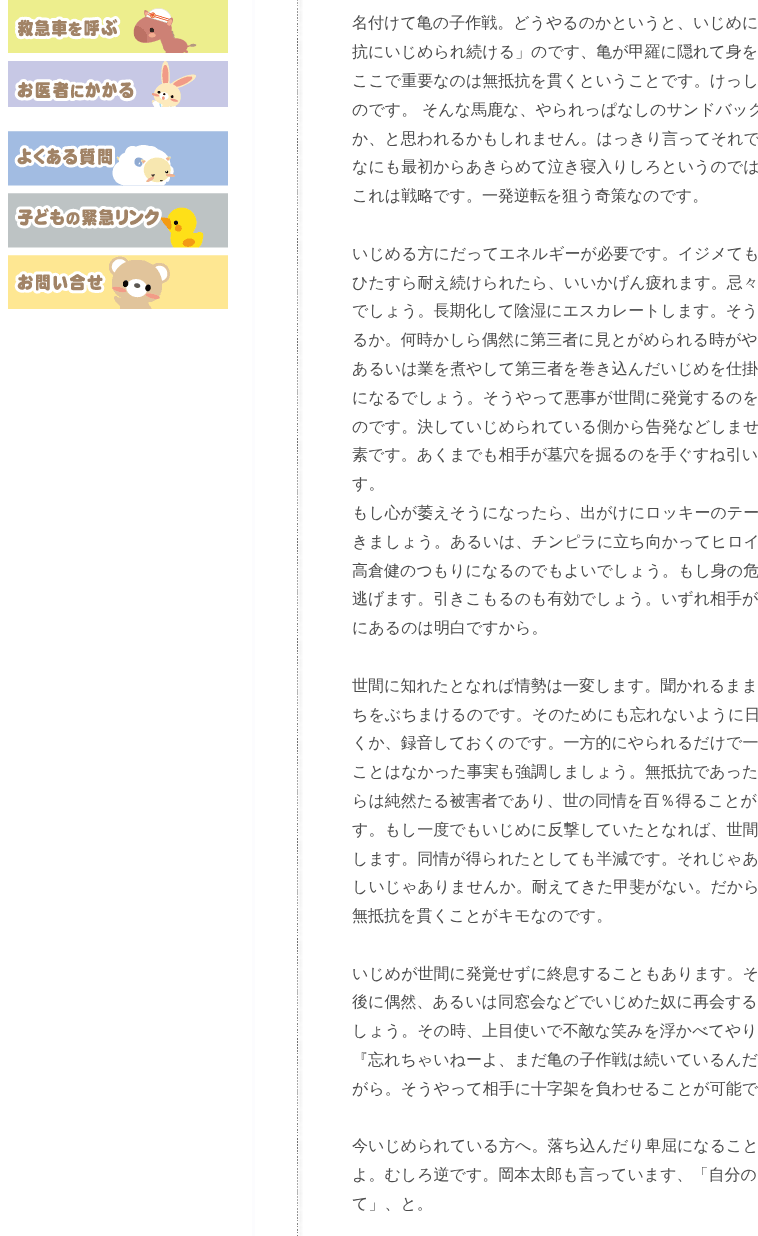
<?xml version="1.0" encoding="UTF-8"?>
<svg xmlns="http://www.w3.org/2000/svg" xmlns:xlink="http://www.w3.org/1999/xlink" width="758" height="1236">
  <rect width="100%" height="100%" fill="#ffffff" />
  <image x="8" y="0" width="220" height="53" xlink:href="image1.png" />
  <image x="8" y="61" width="220" height="46" xlink:href="image2.png" />
  <image x="8" y="131" width="220" height="55" xlink:href="image3.png" />
  <image x="8" y="193" width="220" height="55" xlink:href="image4.png" />
  <image x="8" y="255" width="220" height="54" xlink:href="image5.png" />
  <rect x="252" width="3" height="1236" fill="#fcfcfe" />
  <image x="297" y="0" width="6" height="1236" xlink:href="image6.png" />
  <text x="352" y="28" style="font-family: WenQuanYi Zen Hei; font-size: 16px; font-weight: 500; fill: #4c4c4c">名付けて亀の子作戦。どうやるのかというと、いじめに</text>
  <text x="352" y="57" style="font-family: WenQuanYi Zen Hei; font-size: 16px; font-weight: 500; fill: #4c4c4c">抗にいじめられ続ける」のです、亀が甲羅に隠れて身を</text>
  <text x="352" y="86" style="font-family: WenQuanYi Zen Hei; font-size: 16px; font-weight: 500; fill: #4c4c4c">ここで重要なのは無抵抗を貫くということです。けっし</text>
  <text x="352" y="115" style="font-family: WenQuanYi Zen Hei; font-size: 16px; font-weight: 500; fill: #4c4c4c">のです。 そんな馬鹿な、やられっぱなしのサンドバック</text>
  <text x="352" y="144" style="font-family: WenQuanYi Zen Hei; font-size: 16px; font-weight: 500; fill: #4c4c4c">か、と思われるかもしれません。はっきり言ってそれで</text>
  <text x="352" y="172" style="font-family: WenQuanYi Zen Hei; font-size: 16px; font-weight: 500; fill: #4c4c4c">なにも最初からあきらめて泣き寝入りしろというのでは</text>
  <text x="352" y="201" style="font-family: WenQuanYi Zen Hei; font-size: 16px; font-weight: 500; fill: #4c4c4c">これは戦略です。一発逆転を狙う奇策なのです。</text>
  <text x="352" y="259" style="font-family: WenQuanYi Zen Hei; font-size: 16px; font-weight: 500; fill: #4c4c4c">いじめる方にだってエネルギーが必要です。イジメても</text>
  <text x="352" y="288" style="font-family: WenQuanYi Zen Hei; font-size: 16px; font-weight: 500; fill: #4c4c4c">ひたすら耐え続けられたら、いいかげん疲れます。忌々</text>
  <text x="352" y="316" style="font-family: WenQuanYi Zen Hei; font-size: 16px; font-weight: 500; fill: #4c4c4c">でしょう。長期化して陰湿にエスカレートします。そう</text>
  <text x="352" y="345" style="font-family: WenQuanYi Zen Hei; font-size: 16px; font-weight: 500; fill: #4c4c4c">るか。何時かしら偶然に第三者に見とがめられる時がや</text>
  <text x="352" y="374" style="font-family: WenQuanYi Zen Hei; font-size: 16px; font-weight: 500; fill: #4c4c4c">あるいは業を煮やして第三者を巻き込んだいじめを仕掛</text>
  <text x="352" y="403" style="font-family: WenQuanYi Zen Hei; font-size: 16px; font-weight: 500; fill: #4c4c4c">になるでしょう。そうやって悪事が世間に発覚するのを</text>
  <text x="352" y="432" style="font-family: WenQuanYi Zen Hei; font-size: 16px; font-weight: 500; fill: #4c4c4c">のです。決していじめられている側から告発などしませ</text>
  <text x="352" y="460" style="font-family: WenQuanYi Zen Hei; font-size: 16px; font-weight: 500; fill: #4c4c4c">素です。あくまでも相手が墓穴を掘るのを手ぐすね引い</text>
  <text x="352" y="489" style="font-family: WenQuanYi Zen Hei; font-size: 16px; font-weight: 500; fill: #4c4c4c">す。</text>
  <text x="352" y="518" style="font-family: WenQuanYi Zen Hei; font-size: 16px; font-weight: 500; fill: #4c4c4c">もし心が萎えそうになったら、出がけにロッキーのテー</text>
  <text x="352" y="547" style="font-family: WenQuanYi Zen Hei; font-size: 16px; font-weight: 500; fill: #4c4c4c">きましょう。あるいは、チンピラに立ち向かってヒロイ</text>
  <text x="352" y="576" style="font-family: WenQuanYi Zen Hei; font-size: 16px; font-weight: 500; fill: #4c4c4c">高倉健のつもりになるのでもよいでしょう。もし身の危</text>
  <text x="352" y="604" style="font-family: WenQuanYi Zen Hei; font-size: 16px; font-weight: 500; fill: #4c4c4c">逃げます。引きこもるのも有効でしょう。いずれ相手が</text>
  <text x="352" y="633" style="font-family: WenQuanYi Zen Hei; font-size: 16px; font-weight: 500; fill: #4c4c4c">にあるのは明白ですから。</text>
  <text x="352" y="691" style="font-family: WenQuanYi Zen Hei; font-size: 16px; font-weight: 500; fill: #4c4c4c">世間に知れたとなれば情勢は一変します。聞かれるまま</text>
  <text x="352" y="720" style="font-family: WenQuanYi Zen Hei; font-size: 16px; font-weight: 500; fill: #4c4c4c">ちをぶちまけるのです。そのためにも忘れないように日</text>
  <text x="352" y="748" style="font-family: WenQuanYi Zen Hei; font-size: 16px; font-weight: 500; fill: #4c4c4c">くか、録音しておくのです。一方的にやられるだけで一</text>
  <text x="352" y="777" style="font-family: WenQuanYi Zen Hei; font-size: 16px; font-weight: 500; fill: #4c4c4c">ことはなかった事実も強調しましょう。無抵抗であった</text>
  <text x="352" y="806" style="font-family: WenQuanYi Zen Hei; font-size: 16px; font-weight: 500; fill: #4c4c4c">らは純然たる被害者であり、世の同情を百％得ることが</text>
  <text x="352" y="835" style="font-family: WenQuanYi Zen Hei; font-size: 16px; font-weight: 500; fill: #4c4c4c">す。もし一度でもいじめに反撃していたとなれば、世間</text>
  <text x="352" y="864" style="font-family: WenQuanYi Zen Hei; font-size: 16px; font-weight: 500; fill: #4c4c4c">します。同情が得られたとしても半減です。それじゃあ</text>
  <text x="352" y="892" style="font-family: WenQuanYi Zen Hei; font-size: 16px; font-weight: 500; fill: #4c4c4c">しいじゃありませんか。耐えてきた甲斐がない。だから</text>
  <text x="352" y="921" style="font-family: WenQuanYi Zen Hei; font-size: 16px; font-weight: 500; fill: #4c4c4c">無抵抗を貫くことがキモなのです。</text>
  <text x="352" y="979" style="font-family: WenQuanYi Zen Hei; font-size: 16px; font-weight: 500; fill: #4c4c4c">いじめが世間に発覚せずに終息することもあります。そ</text>
  <text x="352" y="1007" style="font-family: WenQuanYi Zen Hei; font-size: 16px; font-weight: 500; fill: #4c4c4c">後に偶然、あるいは同窓会などでいじめた奴に再会する</text>
  <text x="352" y="1036" style="font-family: WenQuanYi Zen Hei; font-size: 16px; font-weight: 500; fill: #4c4c4c">しょう。その時、上目使いで不敵な笑みを浮かべてやり</text>
  <text x="352" y="1065" style="font-family: WenQuanYi Zen Hei; font-size: 16px; font-weight: 500; fill: #4c4c4c">『忘れちゃいねーよ、まだ亀の子作戦は続いているんだ</text>
  <text x="352" y="1094" style="font-family: WenQuanYi Zen Hei; font-size: 16px; font-weight: 500; fill: #4c4c4c">がら。そうやって相手に十字架を負わせることが可能で</text>
  <text x="352" y="1151" style="font-family: WenQuanYi Zen Hei; font-size: 16px; font-weight: 500; fill: #4c4c4c">今いじめられている方へ。落ち込んだり卑屈になること</text>
  <text x="352" y="1180" style="font-family: WenQuanYi Zen Hei; font-size: 16px; font-weight: 500; fill: #4c4c4c">よ。むしろ逆です。岡本太郎も言っています、「自分の</text>
  <text x="352" y="1209" style="font-family: WenQuanYi Zen Hei; font-size: 16px; font-weight: 500; fill: #4c4c4c">て」、と。</text>
</svg>
